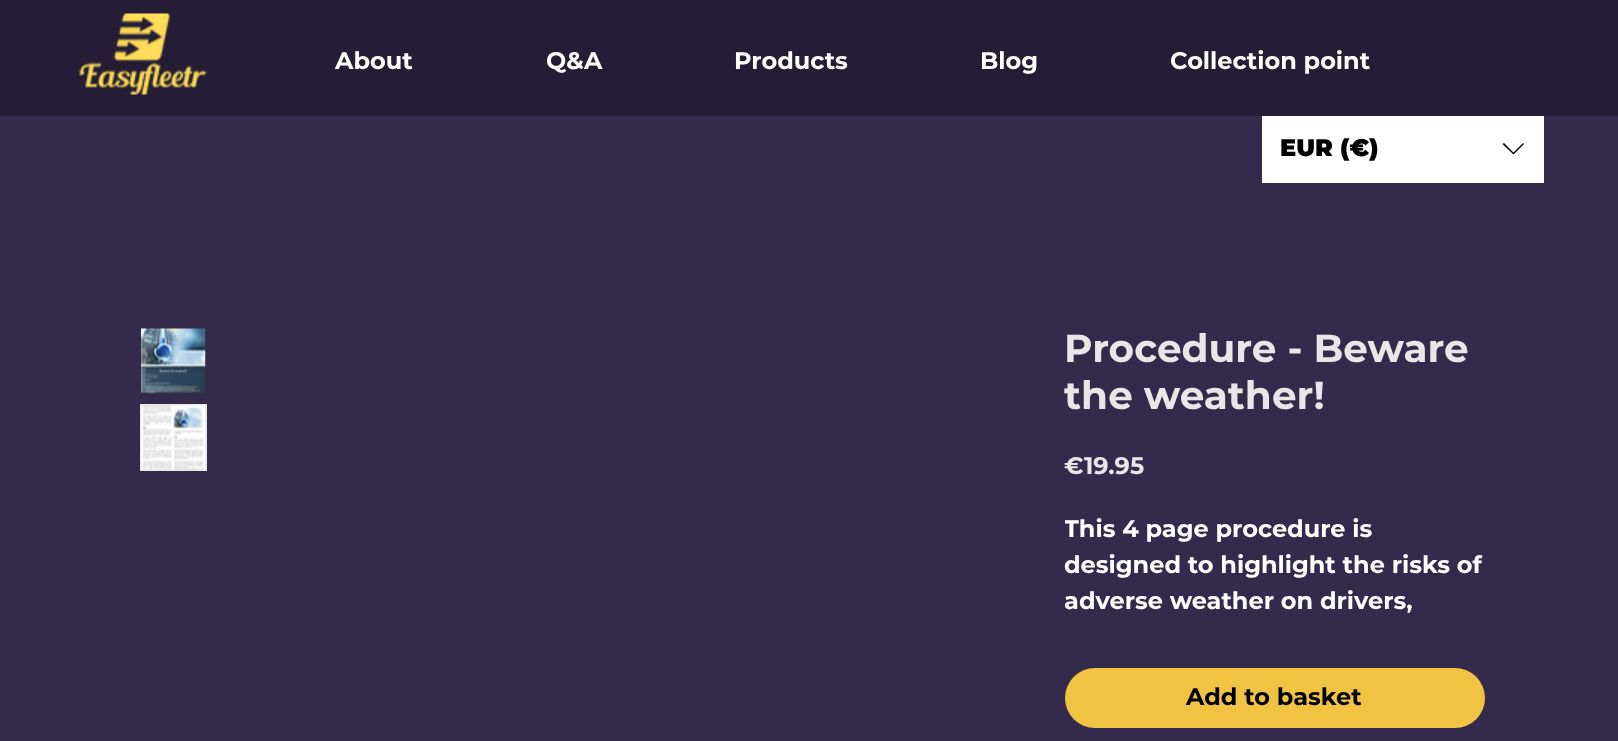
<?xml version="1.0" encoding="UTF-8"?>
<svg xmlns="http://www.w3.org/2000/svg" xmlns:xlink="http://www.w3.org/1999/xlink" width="1618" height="741">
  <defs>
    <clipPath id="clip1"><rect x="1065" y="512" width="420" height="108" /></clipPath>
  </defs>
  <rect width="100%" height="100%" fill="#342a4b" />
  <rect width="1618" height="116" fill="#241d35" />
  <image x="79" y="13" width="129" height="82" xlink:href="image1.png" />
  <rect x="1262" y="116" width="282" height="67" fill="#ffffff" />
  <path d="M 1523 143 l 1 1 l -10.5 10.5 l -11 -10.5 l 1.5 -1 l 9.5 9.5 z" fill="#000000" fill-rule="evenodd" />
  <image x="141" y="328" width="65" height="66" xlink:href="image2.png" />
  <rect x="141" y="405" width="65" height="65" fill="none" stroke="#e8e6e6" stroke-width="2" />
  <image x="141" y="405" width="65" height="65" xlink:href="image3.png" />
  <rect x="1065" y="668" width="420" height="60" rx="30" fill="#f2c243" />
  <text x="335" y="69" style="font-family: Montserrat; font-size: 24px; font-weight: bold; fill: #ffffff">About</text>
  <text x="546" y="69" style="font-family: Montserrat; font-size: 24px; font-weight: bold; fill: #ffffff">Q&amp;A</text>
  <text x="734" y="69" style="font-family: Montserrat; font-size: 24px; font-weight: bold; fill: #ffffff">Products</text>
  <text x="980" y="69" style="font-family: Montserrat; font-size: 24px; font-weight: bold; fill: #ffffff">Blog</text>
  <text x="1170" y="69" style="font-family: Montserrat; font-size: 24px; font-weight: bold; fill: #ffffff">Collection point</text>
  <text x="1280" y="156" style="font-family: Montserrat; font-size: 24px; font-weight: 100; fill: #000000">EUR (€)</text>
  <text x="1064" y="362" style="font-family: Montserrat; font-size: 39px; font-weight: bold; fill: #e8e6e6">Procedure - Beware</text>
  <text x="1064" y="409" style="font-family: Montserrat; font-size: 39px; font-weight: bold; fill: #e8e6e6">the weather!</text>
  <text x="1064" y="474" style="font-family: Montserrat; font-size: 24px; font-weight: bold; fill: #e8e6e6">€19.95</text>
  <g clip-path="url(#clip1)">
    <text x="1064" y="537" style="font-family: Montserrat; font-size: 24px; font-weight: bold; fill: #ffffff">This 4 page procedure is</text>
  </g>
  <text x="1064" y="573" style="font-family: Montserrat; font-size: 24px; font-weight: bold; fill: #ffffff">designed to highlight the risks of</text>
  <text x="1064" y="609" style="font-family: Montserrat; font-size: 24px; font-weight: bold; fill: #ffffff">adverse weather on drivers,</text>
  <text x="1186" y="705" style="font-family: Montserrat; font-size: 24px; font-weight: bold; fill: #000000">Add to basket</text>
</svg>
